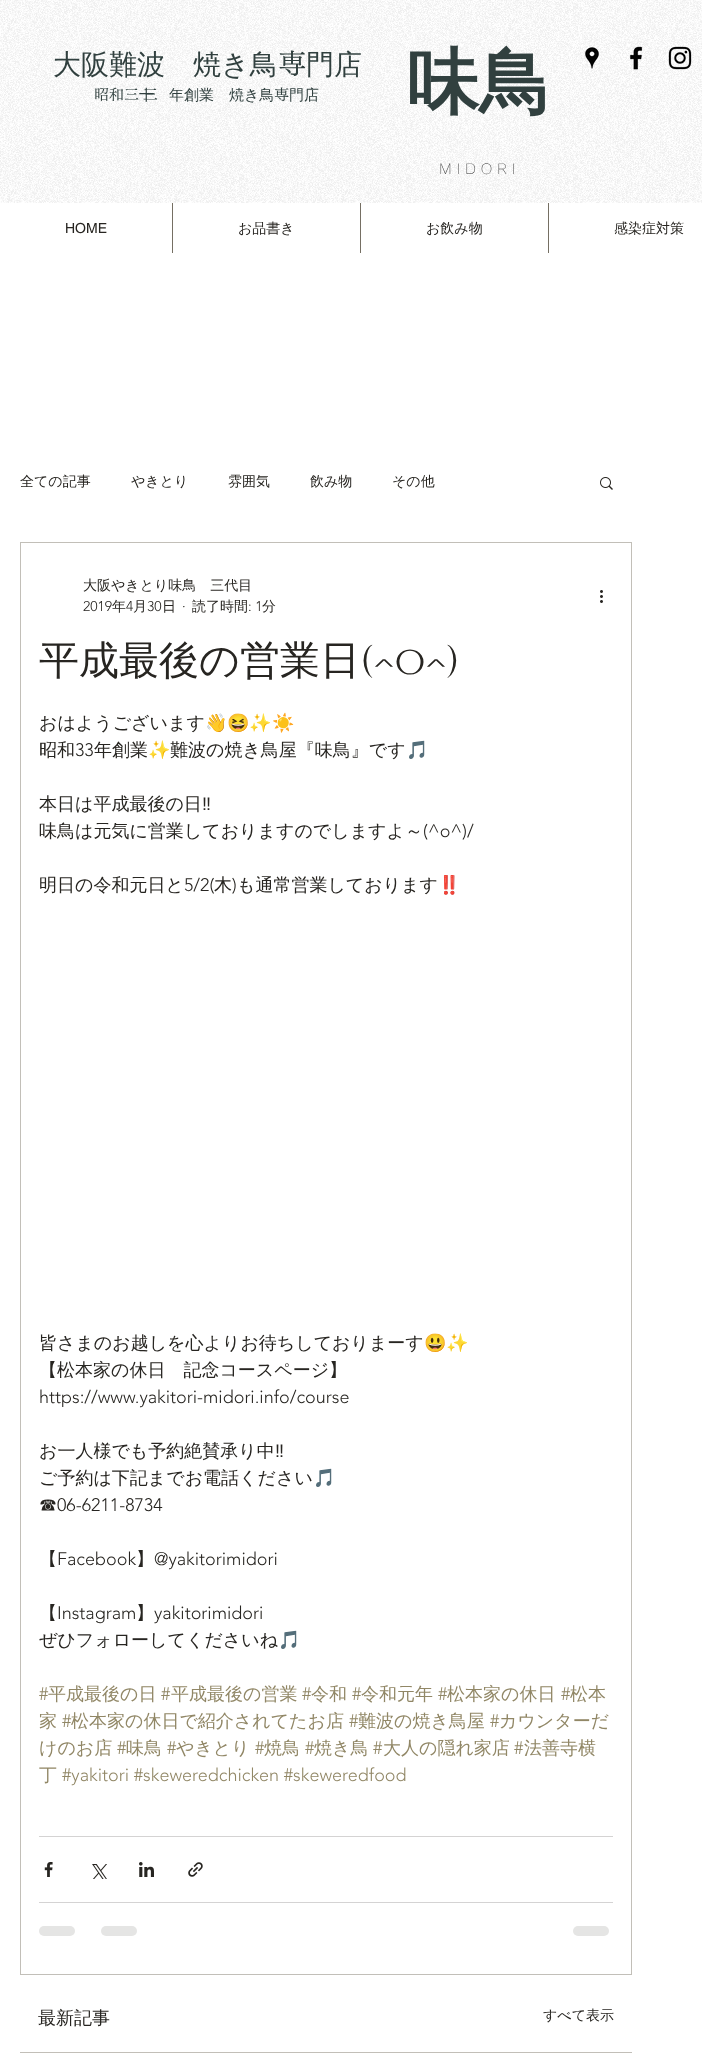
<?xml version="1.0" encoding="UTF-8"?>
<svg xmlns="http://www.w3.org/2000/svg" xmlns:xlink="http://www.w3.org/1999/xlink" width="702" height="2053">
  <rect width="100%" height="100%" fill="#ffffff" />
  <image x="0" y="0" width="702" height="203" xlink:href="image1.png" />
  <image x="585" y="47" width="14" height="22" xlink:href="image2.png" />
  <image x="630" y="46" width="13" height="24" xlink:href="image3.png" />
  <image x="668" y="46" width="24" height="24" xlink:href="image4.png" />
  <rect x="172" y="203" width="1" height="50" fill="#756f63" />
  <rect x="360" y="203" width="1" height="50" fill="#756f63" />
  <rect x="548" y="203" width="1" height="50" fill="#756f63" />
  <image x="600" y="477" width="13" height="13" xlink:href="image5.png" />
  <rect x="20.5" y="542.5" width="611" height="1432" fill="none" stroke="#c2bfb8" />
  <image x="600" y="590" width="3" height="13" xlink:href="image6.png" />
  <rect x="39" y="1836" width="574" height="1" fill="#d4d3d3" />
  <image x="44" y="1862" width="9" height="15" xlink:href="image7.png" />
  <image x="92" y="1864" width="15" height="15" xlink:href="image8.png" />
  <image x="139" y="1862" width="15" height="15" xlink:href="image9.png" />
  <image x="188" y="1862" width="15" height="15" xlink:href="image10.png" />
  <rect x="39" y="1902" width="574" height="1" fill="#d4d3d3" />
  <rect x="39" y="1926" width="36" height="10" rx="5" fill="#e5e5e4" />
  <rect x="101" y="1926" width="36" height="10" rx="5" fill="#e5e5e4" />
  <rect x="573" y="1926" width="36" height="10" rx="5" fill="#e5e5e4" />
  <rect x="20.5" y="2052.5" width="611" height="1" fill="none" stroke="#c2bfb8" />
  <text x="53" y="74" style="font-family: WenQuanYi Zen Hei; font-size: 28px; font-weight: 500; fill: #31403f">大阪難波　焼き鳥</text>
  <text x="278" y="74" style="font-family: 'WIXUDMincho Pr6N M'; font-size: 28px; font-weight: 500; fill: #31403f">専</text>
  <text x="306" y="74" style="font-family: WenQuanYi Zen Hei; font-size: 28px; font-weight: 500; fill: #31403f">門店</text>
  <text x="407" y="107" style="font-family: WenQuanYi Zen Hei; font-size: 72px; font-weight: bold; fill: #31403f">味鳥</text>
  <text x="94" y="100" style="font-family: 'WIXUDMincho Pr6N M'; font-size: 15px; font-weight: 500; fill: #31403f">昭和三 三</text>
  <text x="139" y="100" style="font-family: WenQuanYi Zen Hei; font-size: 15px; font-weight: 500; fill: #31403f">十</text>
  <text x="169" y="100" style="font-family: WenQuanYi Zen Hei; font-size: 15px; font-weight: 500; fill: #31403f">年創業　焼き鳥</text>
  <text x="274" y="100" style="font-family: 'WIXUDMincho Pr6N M'; font-size: 15px; font-weight: 500; fill: #31403f">専</text>
  <text x="289" y="100" style="font-family: WenQuanYi Zen Hei; font-size: 15px; font-weight: 500; fill: #31403f">門店</text>
  <text x="439" y="174" style="font-family: Work Sans; font-size: 16px; font-weight: 200; letter-spacing: 4.75px; fill: #292929">MIDORI</text>
  <text x="65" y="233" style="font-family: helvetica; font-size: 14px; fill: #272521">HOME</text>
  <text x="238" y="233" style="font-family: WenQuanYi Zen Hei; font-size: 14px; font-weight: 500; fill: #272521">お品書き</text>
  <text x="426" y="233" style="font-family: WenQuanYi Zen Hei; font-size: 14px; font-weight: 500; fill: #272521">お飲み物</text>
  <text x="614" y="233" style="font-family: WenQuanYi Zen Hei; font-size: 14px; font-weight: 500; fill: #272521">感染症対策</text>
  <text x="20" y="486" style="font-family: WenQuanYi Zen Hei; font-size: 14px; font-weight: 500; fill: #272521">全ての記事</text>
  <text x="131" y="486" style="font-family: WenQuanYi Zen Hei; font-size: 14px; font-weight: 500; fill: #272521">やきとり</text>
  <text x="228" y="486" style="font-family: WenQuanYi Zen Hei; font-size: 14px; font-weight: 500; fill: #272521">雰囲気</text>
  <text x="310" y="486" style="font-family: WenQuanYi Zen Hei; font-size: 14px; font-weight: 500; fill: #272521">飲み物</text>
  <text x="392" y="486" style="font-family: WenQuanYi Zen Hei; font-size: 14px; font-weight: 500; fill: #272521">その他</text>
  <text x="83" y="590" style="font-family: WenQuanYi Zen Hei; font-size: 14px; font-weight: 500; fill: #272521">大阪やきとり味鳥　三代目</text>
  <text x="83" y="611" style="font-family: 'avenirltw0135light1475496'; font-size: 14px; font-weight: 300; fill: #272521">2019</text>
  <text x="112" y="611" style="font-family: WenQuanYi Zen Hei; font-size: 14px; font-weight: 500; fill: #272521">年</text>
  <text x="126" y="611" style="font-family: 'avenirltw0135light1475496'; font-size: 14px; font-weight: 300; fill: #272521">4</text>
  <text x="133" y="611" style="font-family: WenQuanYi Zen Hei; font-size: 14px; font-weight: 500; fill: #272521">月</text>
  <text x="147" y="611" style="font-family: 'avenirltw0135light1475496'; font-size: 14px; font-weight: 300; fill: #272521">30</text>
  <text x="162" y="611" style="font-family: WenQuanYi Zen Hei; font-size: 14px; font-weight: 500; fill: #272521">日</text>
  <text x="182" y="611" style="font-family: 'avenirltw0135light1475496'; font-size: 14px; font-weight: 300; fill: #272521">·</text>
  <text x="192" y="611" style="font-family: WenQuanYi Zen Hei; font-size: 14px; font-weight: 500; fill: #272521">読了時間</text>
  <text x="248" y="611" style="font-family: 'avenirltw0135light1475496'; font-size: 14px; font-weight: 300; fill: #272521">: 1</text>
  <text x="262" y="611" style="font-family: WenQuanYi Zen Hei; font-size: 14px; font-weight: 500; fill: #272521">分</text>
  <text x="39" y="674" style="font-family: WenQuanYi Zen Hei; font-size: 40px; font-weight: 500; fill: #272521">平成最後の営業日</text>
  <text x="360" y="674" style="font-family: Cinzel; font-size: 40px; fill: #272521">(^o^)</text>
  <text x="39" y="729" style="font-family: WenQuanYi Zen Hei; font-size: 18px; font-weight: 500; fill: #272521">おはようございます</text>
  <text x="205" y="729" style="font-family: Noto Color Emoji; font-size: 18px; fill: #272521">👋😆✨☀️</text>
  <text x="39" y="756" style="font-family: WenQuanYi Zen Hei; font-size: 18px; font-weight: 500; fill: #272521">昭和</text>
  <text x="75" y="756" style="font-family: 'avenirltw0135light1475496'; font-size: 18px; font-weight: 300; fill: #272521">33</text>
  <text x="94" y="756" style="font-family: WenQuanYi Zen Hei; font-size: 18px; font-weight: 500; fill: #272521">年創業</text>
  <text x="148" y="756" style="font-family: Noto Color Emoji; font-size: 18px; fill: #272521">✨</text>
  <text x="170" y="756" style="font-family: WenQuanYi Zen Hei; font-size: 18px; font-weight: 500; fill: #272521">難波の焼き鳥屋『味鳥』です</text>
  <text x="406" y="756" style="font-family: Noto Color Emoji; font-size: 18px; fill: #272521">🎵</text>
  <text x="39" y="810" style="font-family: WenQuanYi Zen Hei; font-size: 18px; font-weight: 500; fill: #272521">本日は平成最後の日</text>
  <text x="202" y="810" style="font-family: Liberation Sans; font-size: 18px; fill: #272521">‼</text>
  <text x="39" y="837" style="font-family: WenQuanYi Zen Hei; font-size: 18px; font-weight: 500; fill: #272521">味鳥は元気に営業しておりますのでしますよ～</text>
  <text x="423" y="837" style="font-family: 'avenirltw0135light1475496'; font-size: 18px; font-weight: 300; fill: #272521">(^o^)/</text>
  <text x="39" y="891" style="font-family: WenQuanYi Zen Hei; font-size: 18px; font-weight: 500; fill: #272521">明日の令和元日と</text>
  <text x="184" y="891" style="font-family: 'avenirltw0135light1475496'; font-size: 18px; font-weight: 300; fill: #272521">5/2(</text>
  <text x="214" y="891" style="font-family: WenQuanYi Zen Hei; font-size: 18px; font-weight: 500; fill: #272521">木</text>
  <text x="232" y="891" style="font-family: 'avenirltw0135light1475496'; font-size: 18px; font-weight: 300; fill: #272521">)</text>
  <text x="237" y="891" style="font-family: WenQuanYi Zen Hei; font-size: 18px; font-weight: 500; fill: #272521">も通常営業しております</text>
  <text x="438" y="891" style="font-family: Noto Color Emoji; font-size: 18px; fill: #272521">‼️</text>
  <text x="39" y="1349" style="font-family: WenQuanYi Zen Hei; font-size: 18px; font-weight: 500; fill: #272521">皆さまのお越しを心よりお待ちしておりまーす</text>
  <text x="424" y="1349" style="font-family: Noto Color Emoji; font-size: 18px; fill: #272521">😃✨</text>
  <text x="39" y="1376" style="font-family: WenQuanYi Zen Hei; font-size: 18px; font-weight: 500; fill: #272521">【松本家の休日　記念コースページ】</text>
  <text x="39" y="1403" style="font-family: 'avenirltw0135light1475496'; font-size: 18px; font-weight: 300; fill: #272521">https://www.yakitori-midori.info/course</text>
  <text x="39" y="1457" style="font-family: WenQuanYi Zen Hei; font-size: 18px; font-weight: 500; fill: #272521">お一人様でも予約絶賛承り中</text>
  <text x="275" y="1457" style="font-family: Liberation Sans; font-size: 18px; fill: #272521">‼</text>
  <text x="39" y="1484" style="font-family: WenQuanYi Zen Hei; font-size: 18px; font-weight: 500; fill: #272521">ご予約は下記までお電話ください</text>
  <text x="313" y="1484" style="font-family: Noto Color Emoji; font-size: 18px; fill: #272521">🎵</text>
  <text x="39" y="1511" style="font-family: WenQuanYi Zen Hei; font-size: 18px; font-weight: 500; fill: #272521">☎</text>
  <text x="57" y="1511" style="font-family: 'avenirltw0135light1475496'; font-size: 18px; font-weight: 300; fill: #272521">06-6211-8734</text>
  <text x="39" y="1565" style="font-family: WenQuanYi Zen Hei; font-size: 18px; font-weight: 500; fill: #272521">【</text>
  <text x="57" y="1565" style="font-family: 'avenirltw0135light1475496'; font-size: 18px; font-weight: 300; fill: #272521">Facebook</text>
  <text x="136" y="1565" style="font-family: WenQuanYi Zen Hei; font-size: 18px; font-weight: 500; fill: #272521">】</text>
  <text x="154" y="1565" style="font-family: 'avenirltw0135light1475496'; font-size: 18px; font-weight: 300; fill: #272521">@yakitorimidori</text>
  <text x="39" y="1619" style="font-family: WenQuanYi Zen Hei; font-size: 18px; font-weight: 500; fill: #272521">【</text>
  <text x="57" y="1619" style="font-family: 'avenirltw0135light1475496'; font-size: 18px; font-weight: 300; fill: #272521">Instagram</text>
  <text x="136" y="1619" style="font-family: WenQuanYi Zen Hei; font-size: 18px; font-weight: 500; fill: #272521">】</text>
  <text x="154" y="1619" style="font-family: 'avenirltw0135light1475496'; font-size: 18px; font-weight: 300; fill: #272521">yakitorimidori</text>
  <text x="39" y="1646" style="font-family: WenQuanYi Zen Hei; font-size: 18px; font-weight: 500; fill: #272521">ぜひフォローしてくださいね</text>
  <text x="278" y="1646" style="font-family: Noto Color Emoji; font-size: 18px; fill: #272521">🎵</text>
  <text x="39" y="1700" style="font-family: 'avenirltw0135light1475496'; font-size: 18px; font-weight: 300; fill: #918766">#</text>
  <text x="48" y="1700" style="font-family: WenQuanYi Zen Hei; font-size: 18px; font-weight: 500; fill: #918766">平成最後の日</text>
  <text x="161" y="1700" style="font-family: 'avenirltw0135light1475496'; font-size: 18px; font-weight: 300; fill: #918766">#</text>
  <text x="171" y="1700" style="font-family: WenQuanYi Zen Hei; font-size: 18px; font-weight: 500; fill: #918766">平成最後の営業</text>
  <text x="302" y="1700" style="font-family: 'avenirltw0135light1475496'; font-size: 18px; font-weight: 300; fill: #918766">#</text>
  <text x="311" y="1700" style="font-family: WenQuanYi Zen Hei; font-size: 18px; font-weight: 500; fill: #918766">令和</text>
  <text x="352" y="1700" style="font-family: 'avenirltw0135light1475496'; font-size: 18px; font-weight: 300; fill: #918766">#</text>
  <text x="361" y="1700" style="font-family: WenQuanYi Zen Hei; font-size: 18px; font-weight: 500; fill: #918766">令和元年</text>
  <text x="438" y="1700" style="font-family: 'avenirltw0135light1475496'; font-size: 18px; font-weight: 300; fill: #918766">#</text>
  <text x="447" y="1700" style="font-family: WenQuanYi Zen Hei; font-size: 18px; font-weight: 500; fill: #918766">松本家の休日</text>
  <text x="561" y="1700" style="font-family: 'avenirltw0135light1475496'; font-size: 18px; font-weight: 300; fill: #918766">#</text>
  <text x="570" y="1700" style="font-family: WenQuanYi Zen Hei; font-size: 18px; font-weight: 500; fill: #918766">松本</text>
  <text x="39" y="1727" style="font-family: WenQuanYi Zen Hei; font-size: 18px; font-weight: 500; fill: #918766">家</text>
  <text x="62" y="1727" style="font-family: 'avenirltw0135light1475496'; font-size: 18px; font-weight: 300; fill: #918766">#</text>
  <text x="71" y="1727" style="font-family: WenQuanYi Zen Hei; font-size: 18px; font-weight: 500; fill: #918766">松本家の休日で紹介されてたお店</text>
  <text x="349" y="1727" style="font-family: 'avenirltw0135light1475496'; font-size: 18px; font-weight: 300; fill: #918766">#</text>
  <text x="358" y="1727" style="font-family: WenQuanYi Zen Hei; font-size: 18px; font-weight: 500; fill: #918766">難波の焼き鳥屋</text>
  <text x="490" y="1727" style="font-family: 'avenirltw0135light1475496'; font-size: 18px; font-weight: 300; fill: #918766">#</text>
  <text x="499" y="1727" style="font-family: WenQuanYi Zen Hei; font-size: 18px; font-weight: 500; fill: #918766">カウンターだ</text>
  <text x="39" y="1754" style="font-family: WenQuanYi Zen Hei; font-size: 18px; font-weight: 500; fill: #918766">けのお店</text>
  <text x="117" y="1754" style="font-family: 'avenirltw0135light1475496'; font-size: 18px; font-weight: 300; fill: #918766">#</text>
  <text x="126" y="1754" style="font-family: WenQuanYi Zen Hei; font-size: 18px; font-weight: 500; fill: #918766">味鳥</text>
  <text x="167" y="1754" style="font-family: 'avenirltw0135light1475496'; font-size: 18px; font-weight: 300; fill: #918766">#</text>
  <text x="176" y="1754" style="font-family: WenQuanYi Zen Hei; font-size: 18px; font-weight: 500; fill: #918766">やきとり</text>
  <text x="255" y="1754" style="font-family: 'avenirltw0135light1475496'; font-size: 18px; font-weight: 300; fill: #918766">#</text>
  <text x="264" y="1754" style="font-family: WenQuanYi Zen Hei; font-size: 18px; font-weight: 500; fill: #918766">焼鳥</text>
  <text x="305" y="1754" style="font-family: 'avenirltw0135light1475496'; font-size: 18px; font-weight: 300; fill: #918766">#</text>
  <text x="314" y="1754" style="font-family: WenQuanYi Zen Hei; font-size: 18px; font-weight: 500; fill: #918766">焼き鳥</text>
  <text x="373" y="1754" style="font-family: 'avenirltw0135light1475496'; font-size: 18px; font-weight: 300; fill: #918766">#</text>
  <text x="383" y="1754" style="font-family: WenQuanYi Zen Hei; font-size: 18px; font-weight: 500; fill: #918766">大人の隠れ家店</text>
  <text x="514" y="1754" style="font-family: 'avenirltw0135light1475496'; font-size: 18px; font-weight: 300; fill: #918766">#</text>
  <text x="524" y="1754" style="font-family: WenQuanYi Zen Hei; font-size: 18px; font-weight: 500; fill: #918766">法善寺横</text>
  <text x="39" y="1781" style="font-family: WenQuanYi Zen Hei; font-size: 18px; font-weight: 500; fill: #918766">丁</text>
  <text x="62" y="1781" style="font-family: 'avenirltw0135light1475496'; font-size: 18px; font-weight: 300; fill: #918766">#yakitori #skeweredchicken #skeweredfood</text>
  <text x="38" y="2024" style="font-family: WenQuanYi Zen Hei; font-size: 18px; font-weight: 500; fill: #272521">最新記事</text>
  <text x="543" y="2020" style="font-family: WenQuanYi Zen Hei; font-size: 14px; font-weight: 500; fill: #272521">すべて表示</text>
</svg>
